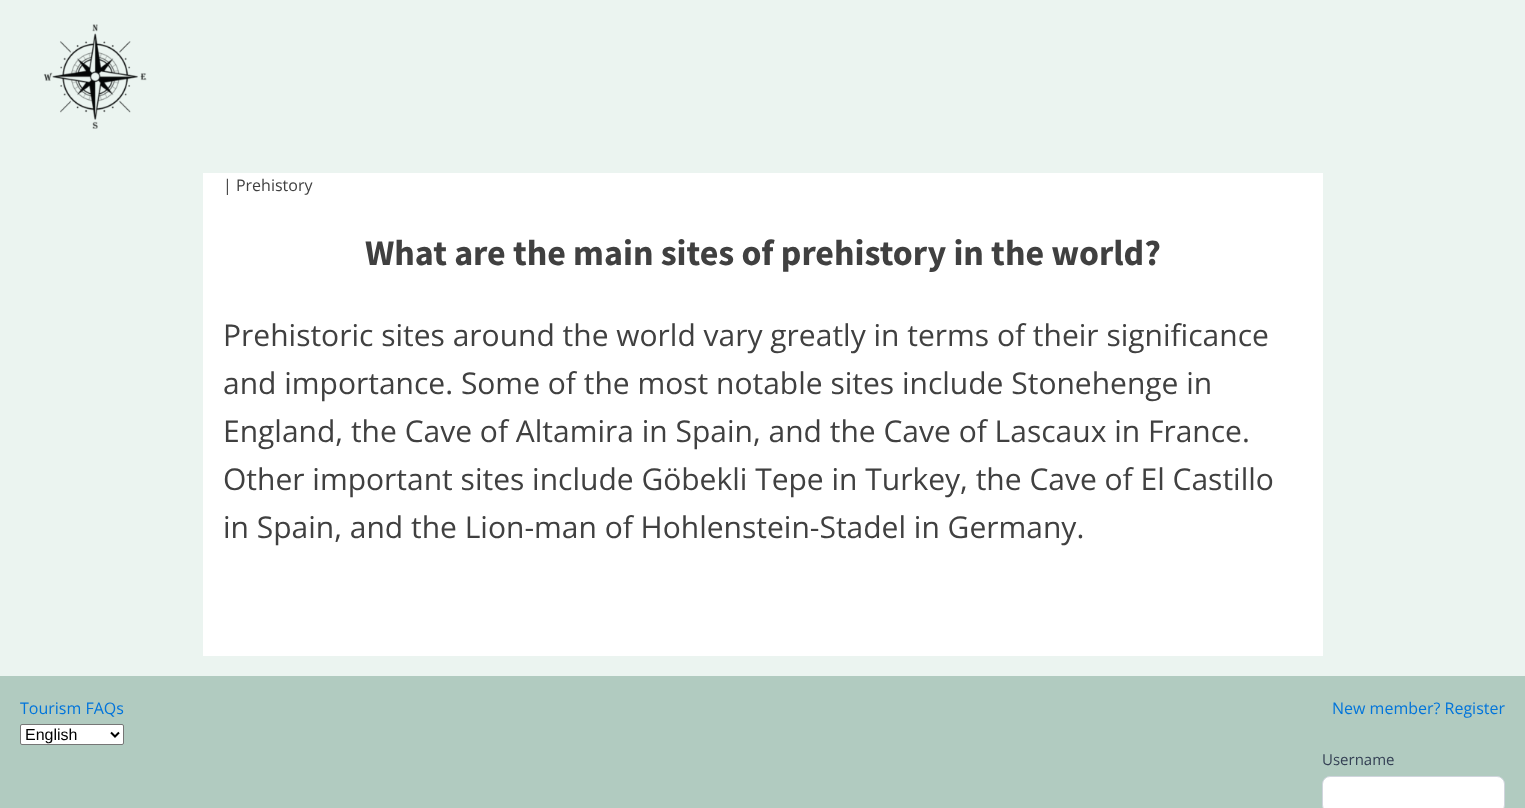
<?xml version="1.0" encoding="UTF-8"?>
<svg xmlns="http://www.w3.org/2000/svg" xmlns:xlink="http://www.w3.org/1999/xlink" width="1525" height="808">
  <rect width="100%" height="100%" fill="#ebf4f0" />
  <image x="43" y="24" width="104" height="105" xlink:href="image1.png" />
  <rect x="203" y="173" width="1120" height="483" fill="#ffffff" />
  <rect y="676" width="1525" height="132" fill="#b1cbc0" />
  <rect x="20.5" y="724.5" width="103" height="20" rx="1.5" fill="#ffffff" stroke="#767676" />
  <path d="M 111 732.5 l 4 4 l 4 -4" fill="none" stroke="#000000" stroke-width="2" />
  <rect x="1322.5" y="776.5" width="182" height="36" rx="7.5" fill="#ffffff" stroke="#d0d5dd" />
  <text x="223" y="191" style="font-family: Open Sans; font-size: 16px; fill: #404040">| Prehistory</text>
  <text x="365" y="265" style="font-family: Source Sans Pro; font-size: 36px; font-weight: bold; fill: #404040">What are the main sites of prehistory in the world?</text>
  <text x="223" y="346" style="font-family: Open Sans; font-size: 30px; fill: #404040">Prehistoric sites around the world vary greatly in terms of their significance</text>
  <text x="223" y="394" style="font-family: Open Sans; font-size: 30px; fill: #404040">and importance. Some of the most notable sites include Stonehenge in</text>
  <text x="223" y="442" style="font-family: Open Sans; font-size: 30px; fill: #404040">England, the Cave of Altamira in Spain, and the Cave of Lascaux in France.</text>
  <text x="223" y="490" style="font-family: Open Sans; font-size: 30px; fill: #404040">Other important sites include Göbekli Tepe in Turkey, the Cave of El Castillo</text>
  <text x="223" y="538" style="font-family: Open Sans; font-size: 30px; fill: #404040">in Spain, and the Lion-man of Hohlenstein-Stadel in Germany.</text>
  <text x="20" y="714" style="font-family: Open Sans; font-size: 16px; fill: #0074db">Tourism FAQs</text>
  <text x="25" y="740" style="font-family: Liberation Sans; font-size: 16px; fill: #000000">English</text>
  <text x="1332" y="714" style="font-family: Open Sans; font-size: 16px; fill: #0074db">New member? Register</text>
  <text x="1322" y="765" style="font-family: Open Sans; font-size: 15px; fill: #344054">Username</text>
</svg>
